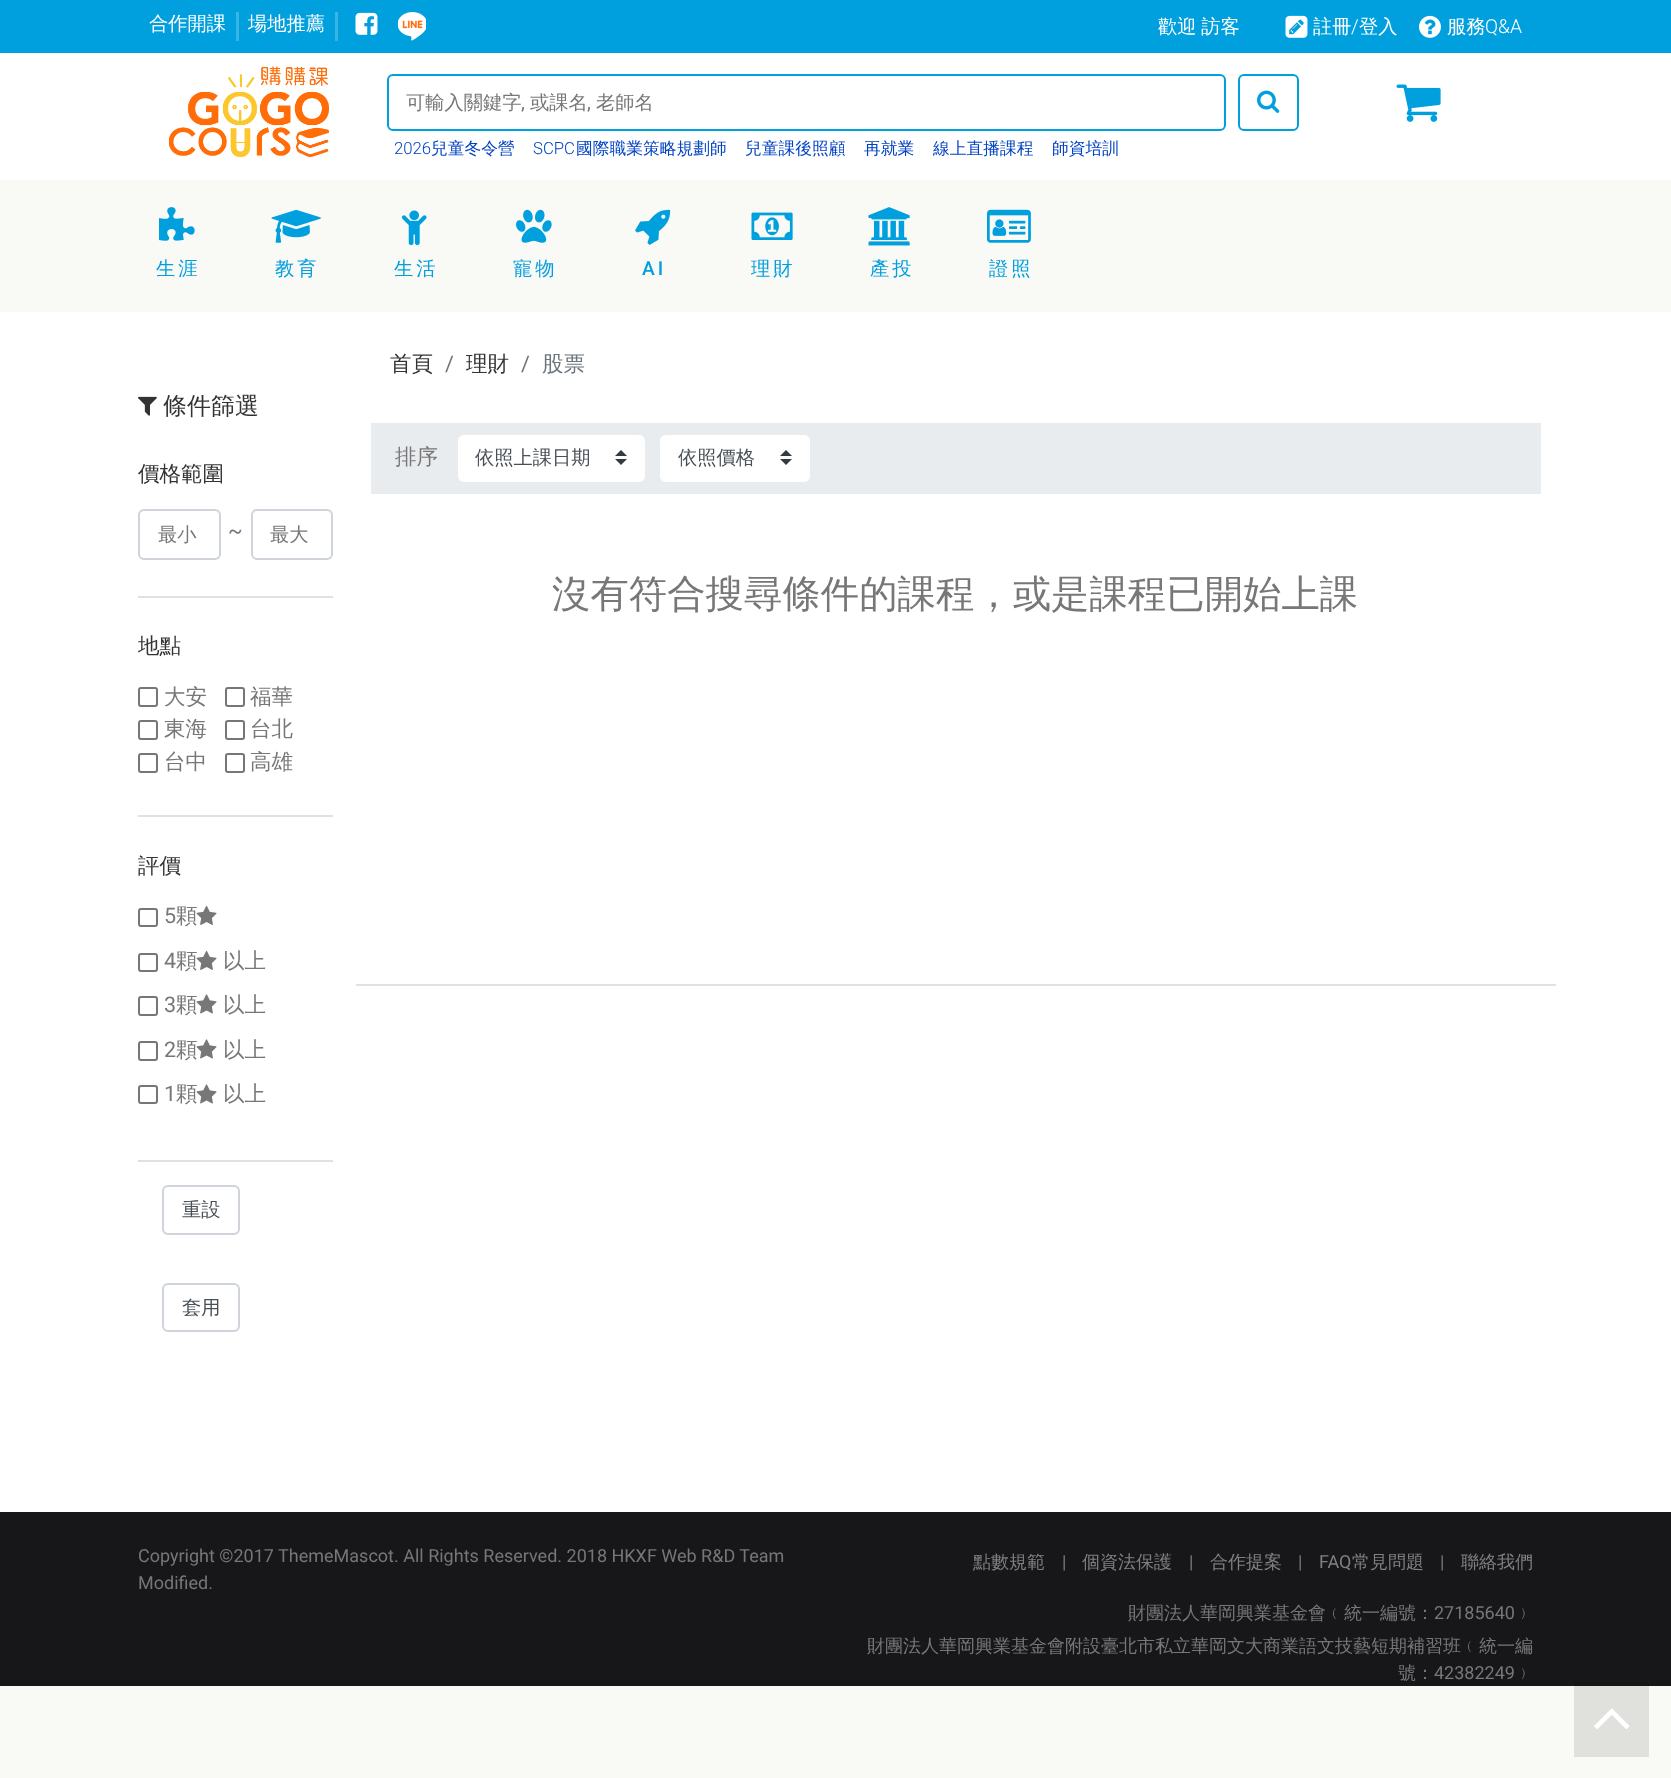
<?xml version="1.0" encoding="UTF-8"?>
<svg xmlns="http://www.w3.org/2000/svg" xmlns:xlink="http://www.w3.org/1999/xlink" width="1671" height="1778">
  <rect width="100%" height="100%" fill="#f9f9f6" />
  <rect x="1574" y="1686" width="75" height="71" fill="#e0e0dd" />
  <rect width="1671" height="53" fill="#009fde" />
  <rect x="236" y="12" width="3" height="29" fill="#38b4e5" />
  <rect x="335" y="12" width="3" height="29" fill="#38b4e5" />
  <image x="355" y="12" width="23" height="23" xlink:href="image1.png" />
  <image x="398" y="12" width="28" height="29" xlink:href="image2.png" />
  <image x="1285" y="15" width="23" height="23" xlink:href="image3.png" />
  <image x="1419" y="15" width="22" height="23" xlink:href="image4.png" />
  <rect y="53" width="1671" height="127" fill="#ffffff" />
  <image x="169" y="66" width="160" height="91" xlink:href="image5.png" />
  <rect x="388" y="75" width="837" height="55" rx="5" fill="none" stroke="#009fde" stroke-width="2" />
  <rect x="1239" y="75" width="59" height="55" rx="5" fill="none" stroke="#009fde" stroke-width="2" />
  <image x="1257" y="90" width="23" height="23" xlink:href="image6.png" />
  <image x="1396" y="84" width="45" height="38" xlink:href="image7.png" />
  <image x="159" y="207" width="36" height="34" xlink:href="image8.png" />
  <image x="271" y="209" width="50" height="34" xlink:href="image9.png" />
  <image x="401" y="210" width="26" height="36" xlink:href="image10.png" />
  <image x="516" y="209" width="36" height="34" xlink:href="image11.png" />
  <image x="635" y="209" width="36" height="36" xlink:href="image12.png" />
  <image x="751" y="212" width="42" height="28" xlink:href="image13.png" />
  <image x="868" y="207" width="42" height="39" xlink:href="image14.png" />
  <image x="987" y="209" width="44" height="34" xlink:href="image15.png" />
  <rect y="312" width="1671" height="1200" fill="#ffffff" />
  <image x="138" y="396" width="19" height="20" xlink:href="image16.png" />
  <rect x="138" y="596" width="195" height="2" fill="#dee2e6" />
  <rect x="139" y="510" width="81" height="49" rx="5" fill="none" stroke="#ced4da" stroke-width="2" />
  <rect x="252" y="510" width="80" height="49" rx="5" fill="none" stroke="#ced4da" stroke-width="2" />
  <rect x="138" y="815" width="195" height="2" fill="#dee2e6" />
  <rect x="139" y="688" width="18" height="18" rx="2" fill="none" stroke="#767676" stroke-width="2" />
  <rect x="226" y="688" width="18" height="18" rx="2" fill="none" stroke="#767676" stroke-width="2" />
  <rect x="139" y="721" width="18" height="18" rx="2" fill="none" stroke="#767676" stroke-width="2" />
  <rect x="226" y="721" width="18" height="18" rx="2" fill="none" stroke="#767676" stroke-width="2" />
  <rect x="139" y="754" width="18" height="18" rx="2" fill="none" stroke="#767676" stroke-width="2" />
  <rect x="226" y="754" width="18" height="18" rx="2" fill="none" stroke="#767676" stroke-width="2" />
  <rect x="138" y="1160" width="195" height="2" fill="#dee2e6" />
  <rect x="139" y="909" width="18" height="17" rx="2" fill="none" stroke="#767676" stroke-width="2" />
  <rect x="139" y="954" width="18" height="17" rx="2" fill="none" stroke="#767676" stroke-width="2" />
  <rect x="139" y="997" width="18" height="18" rx="2" fill="none" stroke="#767676" stroke-width="2" />
  <rect x="139" y="1042" width="18" height="18" rx="2" fill="none" stroke="#767676" stroke-width="2" />
  <rect x="139" y="1086" width="18" height="17" rx="2" fill="none" stroke="#767676" stroke-width="2" />
  <rect x="163" y="1186" width="76" height="48" rx="5" fill="none" stroke="#ced4da" stroke-width="2" />
  <rect x="163" y="1284" width="76" height="47" rx="5" fill="none" stroke="#ced4da" stroke-width="2" />
  <rect x="371" y="423" width="1170" height="71" fill="#e9ecef" />
  <rect x="458" y="435" width="187" height="47" rx="6" fill="#ffffff" />
  <image x="615" y="450" width="12" height="15" xlink:href="image20.png" />
  <rect x="660" y="435" width="150" height="47" rx="6" fill="#ffffff" />
  <image x="780" y="450" width="12" height="15" xlink:href="image20.png" />
  <rect x="356" y="984" width="1200" height="2" fill="#dee2e6" />
  <rect y="1512" width="1671" height="174" fill="#17171a" />
  <rect x="1574" y="1682" width="75" height="4" fill="#151517" />
  <image x="1594" y="1708" width="36" height="21" xlink:href="image21.png" />
  <text x="149" y="30" style="font-family: WenQuanYi Zen Hei; font-size: 19.25px; font-weight: 500; fill: #ffffff">合作開課</text>
  <text x="248" y="30" style="font-family: WenQuanYi Zen Hei; font-size: 19.25px; font-weight: 500; fill: #ffffff">場地推薦</text>
  <text x="1158" y="33" word-spacing="-1" style="font-family: WenQuanYi Zen Hei; font-size: 19.25px; font-weight: 500; fill: #ffffff">歡迎 訪客</text>
  <text x="1313" y="33" style="font-family: WenQuanYi Zen Hei; font-size: 19.25px; font-weight: 500; fill: #ffffff">註冊</text>
  <text x="1351" y="33" style="font-family: Roboto; font-size: 19.25px; font-weight: 300; fill: #ffffff">/</text>
  <text x="1359" y="33" style="font-family: WenQuanYi Zen Hei; font-size: 19.25px; font-weight: 500; fill: #ffffff">登入</text>
  <text x="1447" y="33" style="font-family: WenQuanYi Zen Hei; font-size: 19.25px; font-weight: 500; fill: #ffffff">服務</text>
  <text x="1485" y="33" style="font-family: Roboto; font-size: 19.25px; font-weight: 300; fill: #ffffff">Q&amp;A</text>
  <text x="406" y="109" style="font-family: WenQuanYi Zen Hei; font-size: 19.25px; font-weight: 500; fill: #777777">可輸入關鍵字</text>
  <text x="521" y="109" style="font-family: Roboto; font-size: 19.25px; fill: #777777">,</text>
  <text x="530" y="109" style="font-family: WenQuanYi Zen Hei; font-size: 19.25px; font-weight: 500; fill: #777777">或課名</text>
  <text x="587" y="109" style="font-family: Roboto; font-size: 19.25px; fill: #777777">,</text>
  <text x="596" y="109" style="font-family: WenQuanYi Zen Hei; font-size: 19.25px; font-weight: 500; fill: #777777">老師名</text>
  <text x="394" y="154" style="font-family: Roboto; font-size: 16.75px; font-weight: 300; fill: #0042c5">2026</text>
  <text x="431" y="154" style="font-family: WenQuanYi Zen Hei; font-size: 16.75px; font-weight: 500; fill: #0042c5">兒童冬令營</text>
  <text x="533" y="154" style="font-family: Roboto; font-size: 16.75px; font-weight: 300; fill: #0042c5">SCPC</text>
  <text x="576" y="154" style="font-family: WenQuanYi Zen Hei; font-size: 16.75px; font-weight: 500; fill: #0042c5">國際職業策略規劃師</text>
  <text x="745" y="154" style="font-family: WenQuanYi Zen Hei; font-size: 16.75px; font-weight: 500; fill: #0042c5">兒童課後照顧</text>
  <text x="864" y="154" style="font-family: WenQuanYi Zen Hei; font-size: 16.75px; font-weight: 500; fill: #0042c5">再就業</text>
  <text x="933" y="154" style="font-family: WenQuanYi Zen Hei; font-size: 16.75px; font-weight: 500; fill: #0042c5">線上直播課程</text>
  <text x="1052" y="154" style="font-family: WenQuanYi Zen Hei; font-size: 16.75px; font-weight: 500; fill: #0042c5">師資培訓</text>
  <text x="156" y="275" style="font-family: WenQuanYi Zen Hei; font-size: 19.25px; font-weight: 500; letter-spacing: 3px; fill: #009fde">生涯</text>
  <text x="275" y="275" style="font-family: WenQuanYi Zen Hei; font-size: 19.25px; font-weight: 500; letter-spacing: 3px; fill: #009fde">教育</text>
  <text x="394" y="275" style="font-family: WenQuanYi Zen Hei; font-size: 19.25px; font-weight: 500; letter-spacing: 3px; fill: #009fde">生活</text>
  <text x="513" y="275" style="font-family: WenQuanYi Zen Hei; font-size: 19.25px; font-weight: 500; letter-spacing: 3px; fill: #009fde">寵物</text>
  <text x="642" y="275" style="font-family: Roboto; font-size: 19.25px; font-weight: 500; letter-spacing: 3px; fill: #009fde">AI</text>
  <text x="751" y="275" style="font-family: WenQuanYi Zen Hei; font-size: 19.25px; font-weight: 500; letter-spacing: 3px; fill: #009fde">理財</text>
  <text x="870" y="275" style="font-family: WenQuanYi Zen Hei; font-size: 19.25px; font-weight: 500; letter-spacing: 3px; fill: #009fde">產投</text>
  <text x="989" y="275" style="font-family: WenQuanYi Zen Hei; font-size: 19.25px; font-weight: 500; letter-spacing: 3px; fill: #009fde">證照</text>
  <text x="163" y="414" style="font-family: WenQuanYi Zen Hei; font-size: 24px; font-weight: 500; fill: #333333">條件篩選</text>
  <text x="138" y="481" style="font-family: WenQuanYi Zen Hei; font-size: 21.5px; font-weight: 500; fill: #333333">價格範圍</text>
  <text x="158" y="541" style="font-family: WenQuanYi Zen Hei; font-size: 19.25px; font-weight: 500; fill: #777777">最小</text>
  <text x="228" y="538" style="font-family: Roboto; font-size: 21.5px; fill: #777777">~</text>
  <text x="270" y="541" style="font-family: WenQuanYi Zen Hei; font-size: 19.25px; font-weight: 500; fill: #777777">最大</text>
  <text x="138" y="653" style="font-family: WenQuanYi Zen Hei; font-size: 21.5px; font-weight: 500; fill: #333333">地點</text>
  <text x="164" y="704" style="font-family: WenQuanYi Zen Hei; font-size: 21.5px; font-weight: 500; fill: #777777">大安</text>
  <text x="250" y="704" style="font-family: WenQuanYi Zen Hei; font-size: 21.5px; font-weight: 500; fill: #777777">福華</text>
  <text x="164" y="736" style="font-family: WenQuanYi Zen Hei; font-size: 21.5px; font-weight: 500; fill: #777777">東海</text>
  <text x="250" y="736" style="font-family: WenQuanYi Zen Hei; font-size: 21.5px; font-weight: 500; fill: #777777">台北</text>
  <text x="164" y="769" style="font-family: WenQuanYi Zen Hei; font-size: 21.5px; font-weight: 500; fill: #777777">台中</text>
  <text x="250" y="769" style="font-family: WenQuanYi Zen Hei; font-size: 21.5px; font-weight: 500; fill: #777777">高雄</text>
  <text x="138" y="873" style="font-family: WenQuanYi Zen Hei; font-size: 21.5px; font-weight: 500; fill: #333333">評價</text>
  <text x="164" y="923" style="font-family: Roboto; font-size: 21.5px; fill: #777777">5</text>
  <text x="176" y="923" style="font-family: WenQuanYi Zen Hei; font-size: 21.5px; font-weight: 500; fill: #777777">顆</text>
  <image x="196" y="905" width="21" height="20" xlink:href="image17.png" />
  <text x="164" y="968" style="font-family: Roboto; font-size: 21.5px; fill: #777777">4</text>
  <text x="176" y="968" style="font-family: WenQuanYi Zen Hei; font-size: 21.5px; font-weight: 500; fill: #777777">顆</text>
  <image x="196" y="950" width="21" height="20" xlink:href="image17.png" />
  <text x="223" y="968" style="font-family: WenQuanYi Zen Hei; font-size: 21.5px; font-weight: 500; fill: #777777">以上</text>
  <text x="164" y="1012" style="font-family: Roboto; font-size: 21.5px; fill: #777777">3</text>
  <text x="176" y="1012" style="font-family: WenQuanYi Zen Hei; font-size: 21.5px; font-weight: 500; fill: #777777">顆</text>
  <image x="196" y="994" width="21" height="20" xlink:href="image18.png" />
  <text x="223" y="1012" style="font-family: WenQuanYi Zen Hei; font-size: 21.5px; font-weight: 500; fill: #777777">以上</text>
  <text x="164" y="1057" style="font-family: Roboto; font-size: 21.5px; fill: #777777">2</text>
  <text x="176" y="1057" style="font-family: WenQuanYi Zen Hei; font-size: 21.5px; font-weight: 500; fill: #777777">顆</text>
  <image x="196" y="1039" width="21" height="20" xlink:href="image18.png" />
  <text x="223" y="1057" style="font-family: WenQuanYi Zen Hei; font-size: 21.5px; font-weight: 500; fill: #777777">以上</text>
  <text x="164" y="1101" style="font-family: Roboto; font-size: 21.5px; fill: #777777">1</text>
  <text x="176" y="1101" style="font-family: WenQuanYi Zen Hei; font-size: 21.5px; font-weight: 500; fill: #777777">顆</text>
  <image x="196" y="1084" width="21" height="20" xlink:href="image19.png" />
  <text x="223" y="1101" style="font-family: WenQuanYi Zen Hei; font-size: 21.5px; font-weight: 500; fill: #777777">以上</text>
  <text x="182" y="1216" style="font-family: WenQuanYi Zen Hei; font-size: 19.25px; font-weight: 500; fill: #495057">重設</text>
  <text x="182" y="1314" style="font-family: WenQuanYi Zen Hei; font-size: 19.25px; font-weight: 500; fill: #495057">套用</text>
  <text x="390" y="371" style="font-family: WenQuanYi Zen Hei; font-size: 21.5px; font-weight: 500; fill: #333333">首頁</text>
  <text x="445" y="371" style="font-family: Roboto; font-size: 21.5px; fill: #6c757d">/</text>
  <text x="466" y="371" style="font-family: WenQuanYi Zen Hei; font-size: 21.5px; font-weight: 500; fill: #333333">理財</text>
  <text x="521" y="371" style="font-family: Roboto; font-size: 21.5px; fill: #6c757d">/</text>
  <text x="542" y="371" style="font-family: WenQuanYi Zen Hei; font-size: 21.5px; font-weight: 500; fill: #6c757d">股票</text>
  <text x="395" y="464" style="font-family: WenQuanYi Zen Hei; font-size: 21.5px; font-weight: 500; fill: #777777">排序</text>
  <text x="475" y="464" style="font-family: WenQuanYi Zen Hei; font-size: 19.25px; font-weight: 500; fill: #495057">依照上課日期</text>
  <text x="678" y="464" style="font-family: WenQuanYi Zen Hei; font-size: 19.25px; font-weight: 500; fill: #495057">依照價格</text>
  <text x="552" y="607" style="font-family: WenQuanYi Zen Hei; font-size: 38.4px; font-weight: 500; fill: #777777">沒有符合搜尋條件的課程，或是課程已開始上課</text>
  <text x="138" y="1562" style="font-family: Roboto; font-size: 18px; fill: #777777">Copyright ©2017 ThemeMascot. All Rights Reserved. 2018 HKXF Web R&amp;D Team</text>
  <text x="138" y="1589" style="font-family: Roboto; font-size: 18px; fill: #777777">Modified.</text>
  <text x="973" y="1568" style="font-family: WenQuanYi Zen Hei; font-size: 18px; font-weight: 500; fill: #808080">點數規範</text>
  <text x="1062" y="1568" style="font-family: Roboto; font-size: 18px; fill: #777777">|</text>
  <text x="1082" y="1568" style="font-family: WenQuanYi Zen Hei; font-size: 18px; font-weight: 500; fill: #808080">個資法保護</text>
  <text x="1189" y="1568" style="font-family: Roboto; font-size: 18px; fill: #777777">|</text>
  <text x="1210" y="1568" style="font-family: WenQuanYi Zen Hei; font-size: 18px; font-weight: 500; fill: #808080">合作提案</text>
  <text x="1298" y="1568" style="font-family: Roboto; font-size: 18px; fill: #777777">|</text>
  <text x="1319" y="1568" style="font-family: Roboto; font-size: 18px; fill: #808080">FAQ</text>
  <text x="1352" y="1568" style="font-family: WenQuanYi Zen Hei; font-size: 18px; font-weight: 500; fill: #808080">常見問題</text>
  <text x="1440" y="1568" style="font-family: Roboto; font-size: 18px; fill: #777777">|</text>
  <text x="1461" y="1568" style="font-family: WenQuanYi Zen Hei; font-size: 18px; font-weight: 500; fill: #808080">聯絡我們</text>
  <text x="1128" y="1619" style="font-family: WenQuanYi Zen Hei; font-size: 18px; font-weight: 500; fill: #777777">財團法人華岡興業基金會﹙統一編號：</text>
  <text x="1434" y="1619" style="font-family: Roboto; font-size: 18px; fill: #777777">27185640</text>
  <text x="1515" y="1619" style="font-family: WenQuanYi Zen Hei; font-size: 18px; font-weight: 500; fill: #777777">﹚</text>
  <text x="867" y="1652" style="font-family: WenQuanYi Zen Hei; font-size: 18px; font-weight: 500; fill: #777777">財團法人華岡興業基金會附設臺北市私立華岡文大商業語文技藝短期補習班﹙統一編</text>
  <text x="1398" y="1679" style="font-family: WenQuanYi Zen Hei; font-size: 18px; font-weight: 500; fill: #777777">號：</text>
  <text x="1434" y="1679" style="font-family: Roboto; font-size: 18px; fill: #777777">42382249</text>
  <text x="1515" y="1679" style="font-family: WenQuanYi Zen Hei; font-size: 18px; font-weight: 500; fill: #777777">﹚</text>
</svg>
